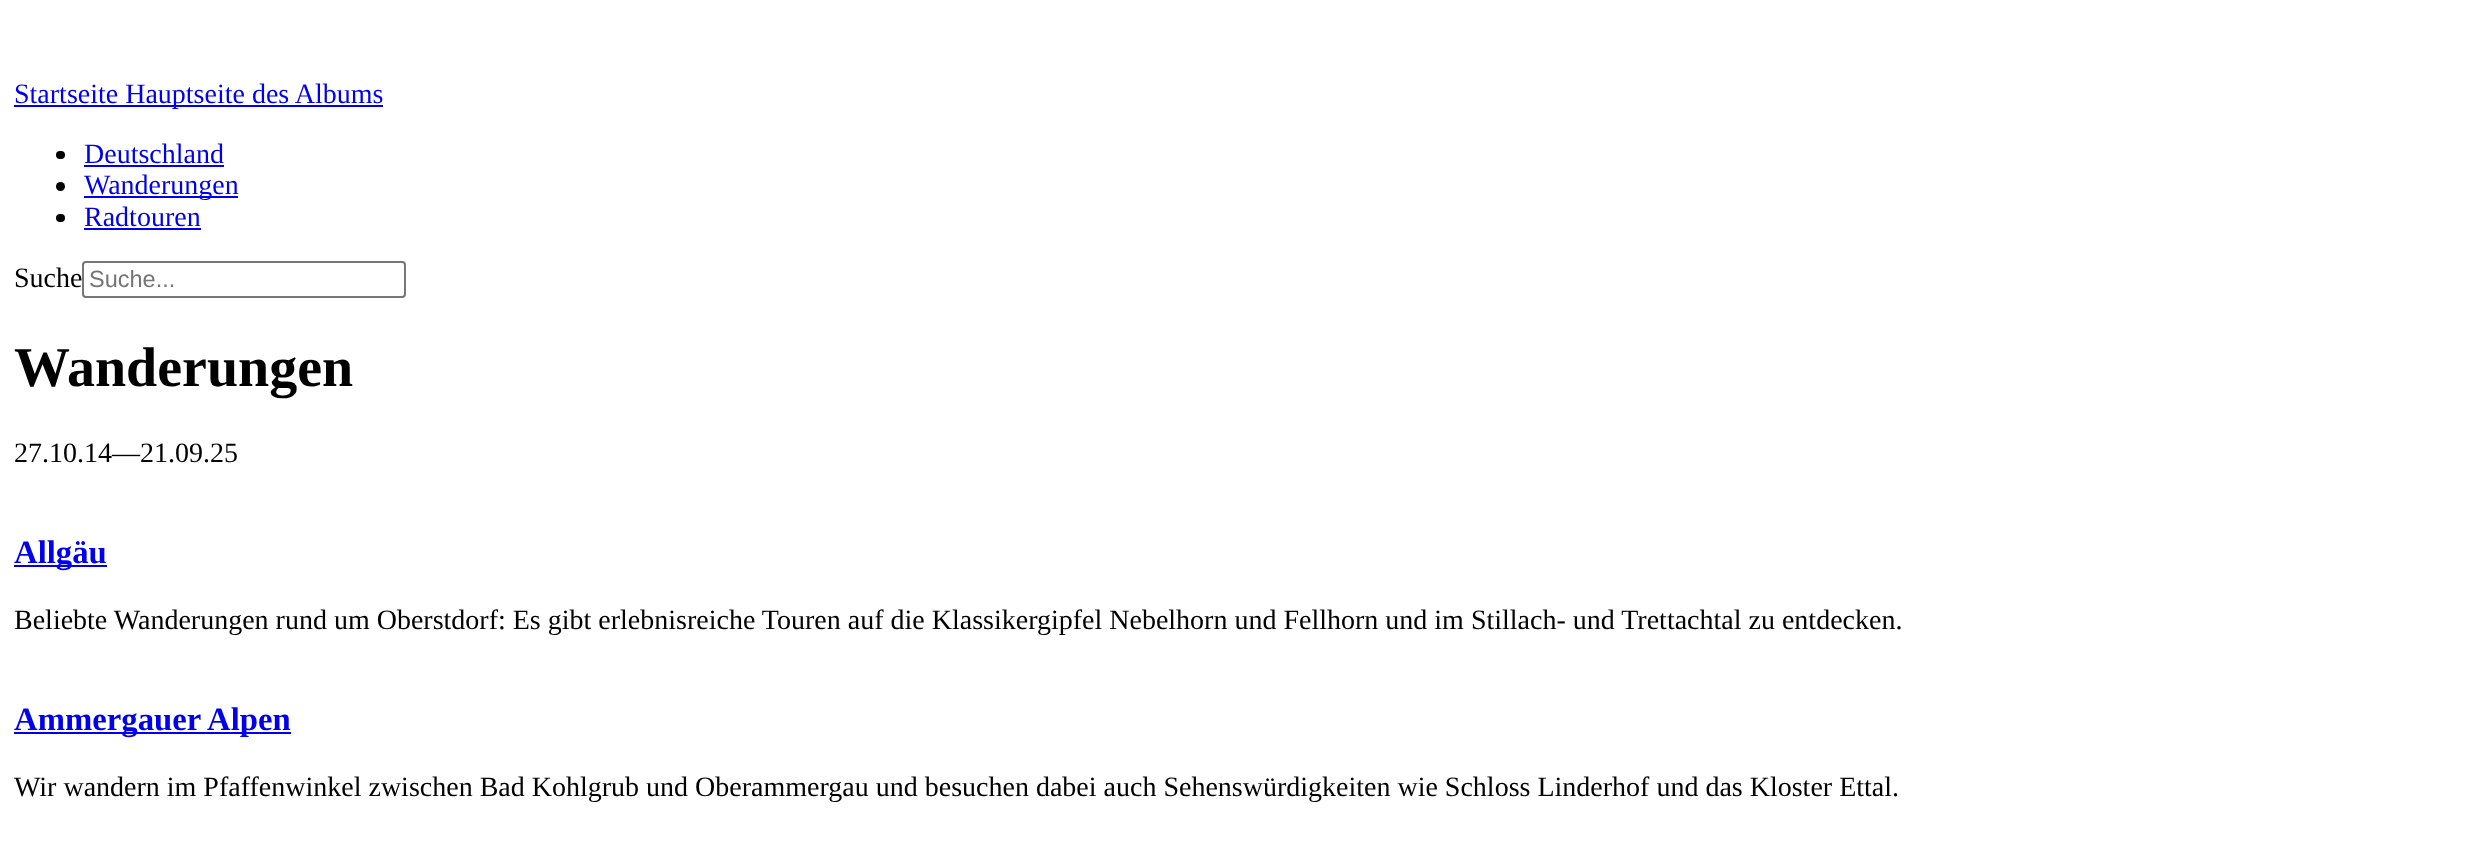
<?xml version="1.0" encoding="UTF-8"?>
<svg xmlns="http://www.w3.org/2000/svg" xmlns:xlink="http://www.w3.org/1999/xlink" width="2476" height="864">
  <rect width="100%" height="100%" fill="#ffffff" />
  <rect x="14" y="105" width="369" height="2" fill="#0000ee" />
  <rect x="56" y="151" width="9" height="8" rx="4" fill="#000000" />
  <rect x="84" y="165" width="140" height="2" fill="#0000ee" />
  <circle cx="60.5" cy="186.5" r="4.5" fill="#000000" />
  <rect x="84" y="196" width="154" height="2" fill="#0000ee" />
  <rect x="56" y="214" width="9" height="8" rx="4" fill="#000000" />
  <rect x="84" y="228" width="117" height="2" fill="#0000ee" />
  <rect x="83" y="262" width="322" height="35" rx="3" fill="none" stroke="#767676" stroke-width="2" />
  <rect x="14" y="565" width="93" height="2" fill="#0000ee" />
  <rect x="14" y="732" width="277" height="2" fill="#0000ee" />
  <text x="14" y="103" style="font-family: Liberation Serif; font-size: 28px; fill: #0000ee">Startseite Hauptseite des Albums</text>
  <text x="84" y="163" style="font-family: Liberation Serif; font-size: 28px; fill: #0000ee">Deutschland</text>
  <text x="84" y="194" style="font-family: Liberation Serif; font-size: 28px; fill: #0000ee">Wanderungen</text>
  <text x="84" y="226" style="font-family: Liberation Serif; font-size: 28px; fill: #0000ee">Radtouren</text>
  <text x="14" y="287" style="font-family: Liberation Serif; font-size: 28px; fill: #000000">Suche</text>
  <text x="89" y="287" style="font-family: Liberation Sans; font-size: 23.5px; fill: #757575">Suche...</text>
  <text x="14" y="386" style="font-family: Liberation Serif; font-size: 56px; font-weight: bold; fill: #000000">Wanderungen</text>
  <text x="14" y="462" style="font-family: Liberation Serif; font-size: 28px; fill: #000000">27.10.14—21.09.25</text>
  <text x="14" y="563" style="font-family: Liberation Serif; font-size: 32.75px; font-weight: bold; fill: #0000ee">Allgäu</text>
  <text x="14" y="629" style="font-family: Liberation Serif; font-size: 28px; fill: #000000">Beliebte Wanderungen rund um Oberstdorf: Es gibt erlebnisreiche Touren auf die Klassikergipfel Nebelhorn und Fellhorn und im Stillach- und Trettachtal zu entdecken.</text>
  <text x="14" y="730" style="font-family: Liberation Serif; font-size: 32.75px; font-weight: bold; fill: #0000ee">Ammergauer Alpen</text>
  <text x="14" y="796" style="font-family: Liberation Serif; font-size: 28px; fill: #000000">Wir wandern im Pfaffenwinkel zwischen Bad Kohlgrub und Oberammergau und besuchen dabei auch Sehenswürdigkeiten wie Schloss Linderhof und das Kloster Ettal.</text>
</svg>
